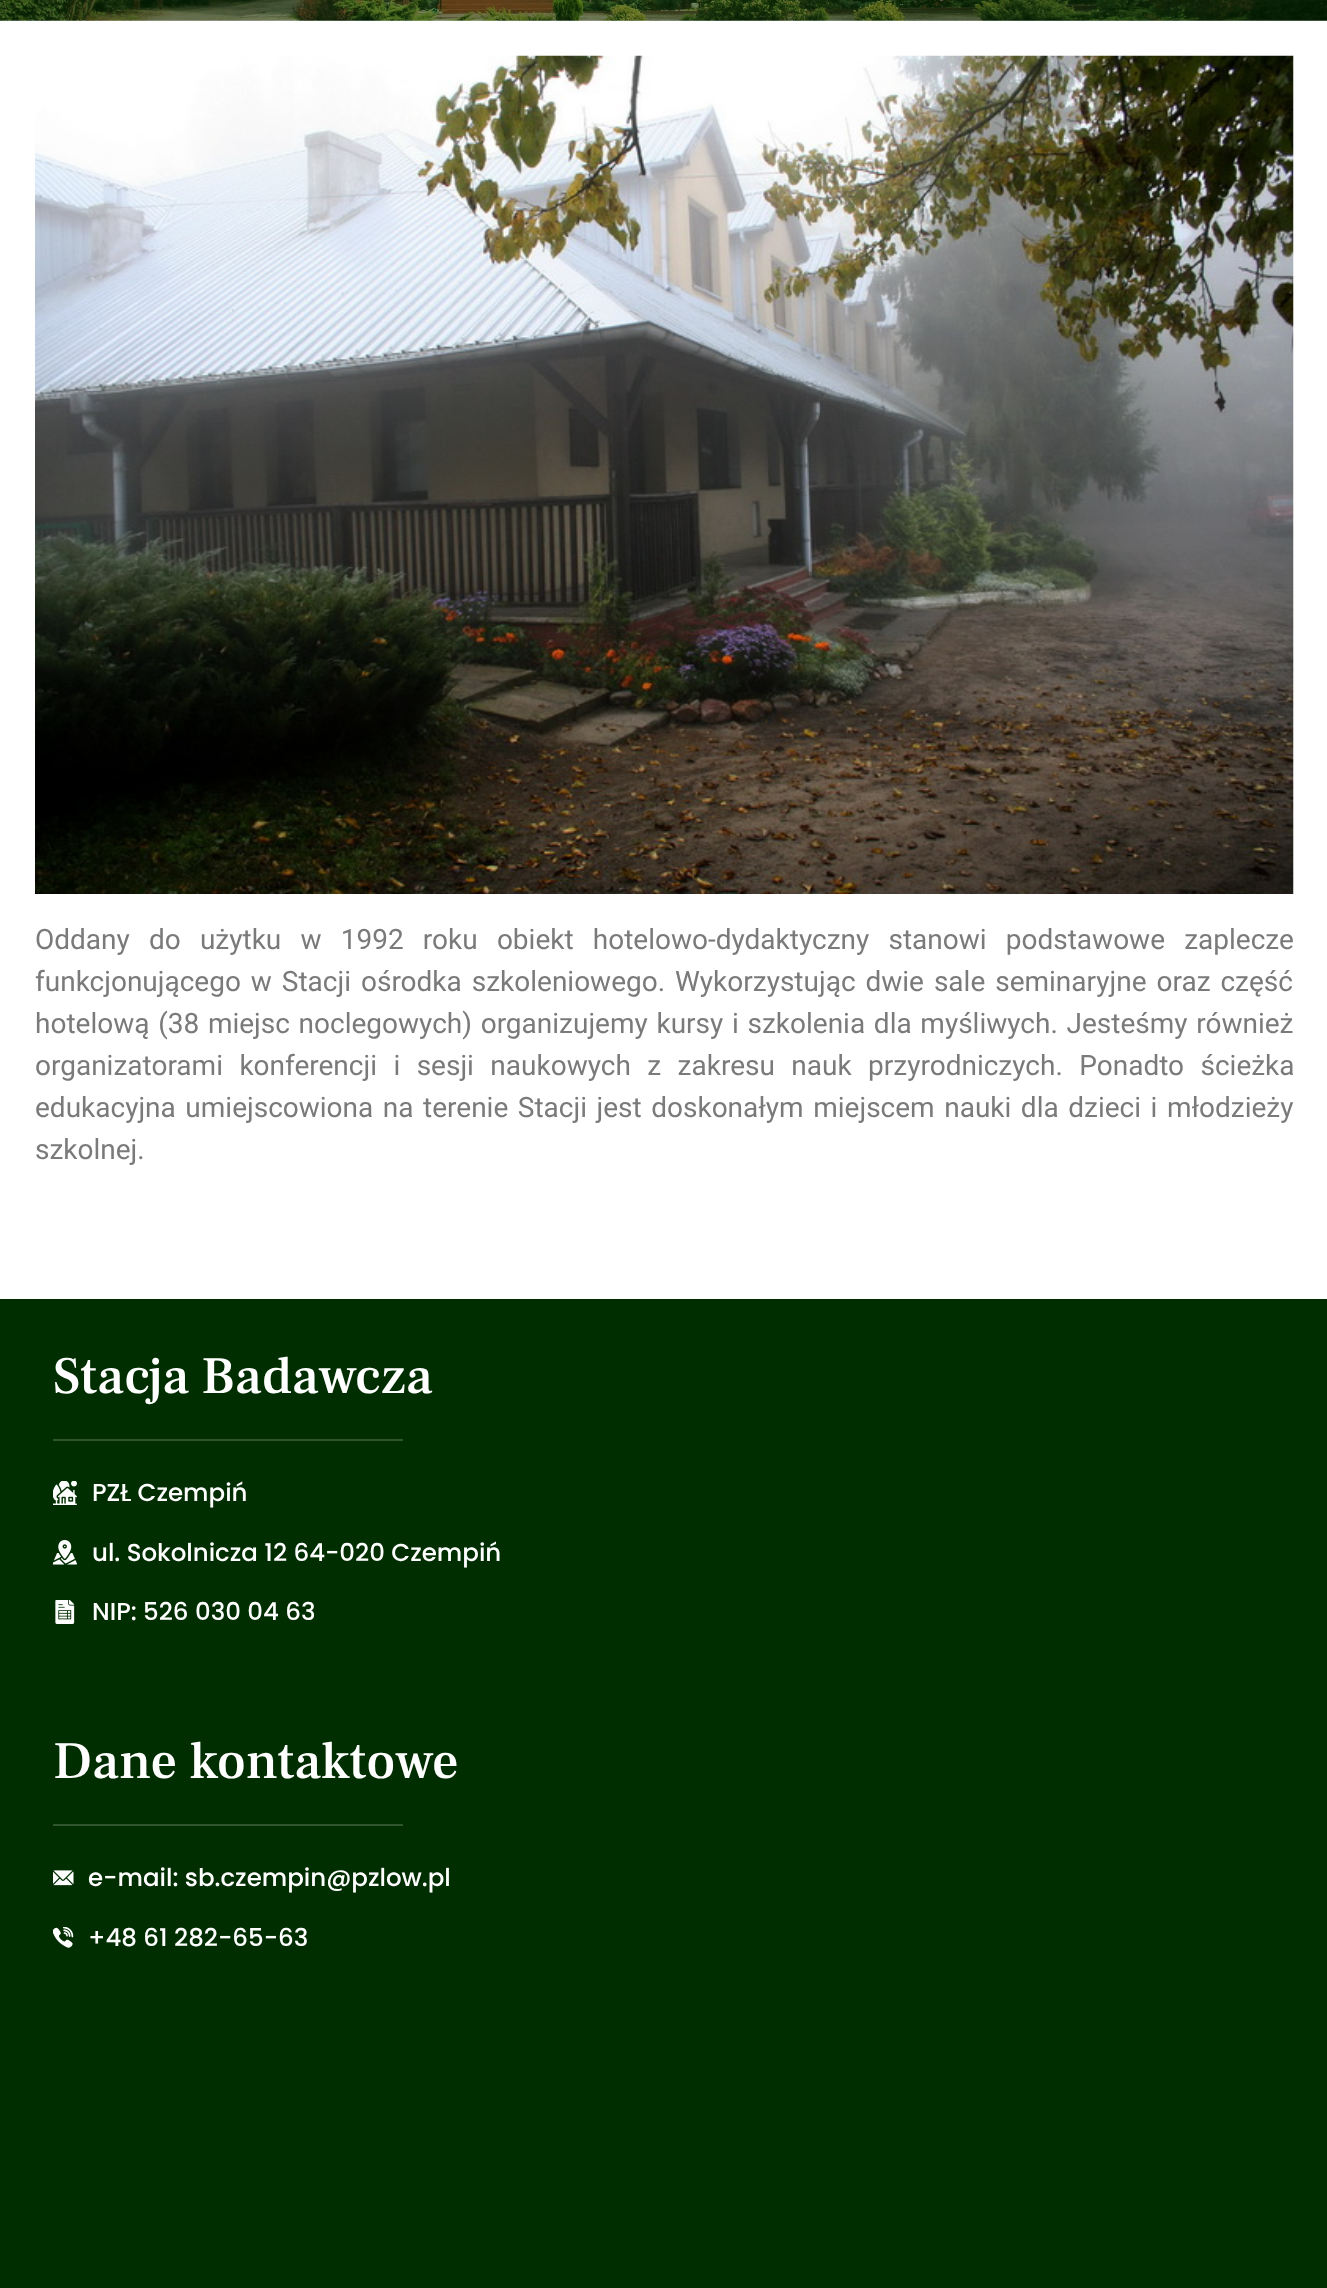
<?xml version="1.0" encoding="UTF-8"?>
<svg xmlns="http://www.w3.org/2000/svg" xmlns:xlink="http://www.w3.org/1999/xlink" width="1327" height="2288">
  <rect width="100%" height="100%" fill="#ffffff" />
  <image x="0" y="0" width="1327" height="21" xlink:href="image1.png" />
  <image x="35" y="55" width="1259" height="839" xlink:href="image2.png" />
  <rect y="1299" width="1327" height="989" fill="#002e00" />
  <rect x="53" y="1439" width="350" height="2" fill="#305630" />
  <image x="53" y="1481" width="24" height="24" xlink:href="image3.png" />
  <image x="53" y="1540" width="24" height="25" xlink:href="image4.png" />
  <image x="55" y="1600" width="20" height="24" xlink:href="image5.png" />
  <rect x="53" y="1824" width="350" height="2" fill="#305630" />
  <image x="53" y="1870" width="21" height="16" xlink:href="image6.png" />
  <image x="53" y="1927" width="21" height="21" xlink:href="image7.png" />
  <text x="35" y="949" word-spacing="12.25" style="font-family: Roboto; font-size: 28px; fill: #7a7a7a">Oddany do użytku w 1992 roku obiekt hotelowo-dydaktyczny stanowi podstawowe zaplecze</text>
  <text x="35" y="991" word-spacing="3" style="font-family: Roboto; font-size: 28px; fill: #7a7a7a">funkcjonującego w Stacji ośrodka szkoleniowego. Wykorzystując dwie sale seminaryjne oraz część</text>
  <text x="35" y="1033" word-spacing="1.75" style="font-family: Roboto; font-size: 28px; fill: #7a7a7a">hotelową (38 miejsc noclegowych) organizujemy kursy i szkolenia dla myśliwych. Jesteśmy również</text>
  <text x="35" y="1075" word-spacing="9.5" style="font-family: Roboto; font-size: 28px; fill: #7a7a7a">organizatorami konferencji i sesji naukowych z zakresu nauk przyrodniczych. Ponadto ścieżka</text>
  <text x="35" y="1117" word-spacing="2.6" style="font-family: Roboto; font-size: 28px; fill: #7a7a7a">edukacyjna umiejscowiona na terenie Stacji jest doskonałym miejscem nauki dla dzieci i młodzieży</text>
  <text x="35" y="1159" style="font-family: Roboto; font-size: 28px; fill: #7a7a7a">szkolnej.</text>
  <text x="53" y="1393" style="font-family: Frank Ruhl Libre; font-size: 52.5px; font-weight: 500; fill: #ffffff">Stacja Badawcza</text>
  <text x="92" y="1501" style="font-family: Poppins; font-size: 24.5px; font-weight: 500; fill: #ffffff">PZŁ Czempiń</text>
  <text x="92" y="1561" style="font-family: Poppins; font-size: 24.5px; font-weight: 500; fill: #ffffff">ul. Sokolnicza 12 64-020 Czempiń</text>
  <text x="92" y="1620" style="font-family: Poppins; font-size: 24.5px; font-weight: 500; fill: #ffffff">NIP: 526 030 04 63</text>
  <text x="53" y="1778" style="font-family: Frank Ruhl Libre; font-size: 52.5px; font-weight: 500; fill: #ffffff">Dane kontaktowe</text>
  <text x="88" y="1886" style="font-family: Poppins; font-size: 24.5px; font-weight: 500; fill: #ffffff">e-mail: sb.czempin@pzlow.pl</text>
  <text x="88" y="1946" style="font-family: Poppins; font-size: 24.5px; font-weight: 500; fill: #ffffff">+48 61 282-65-63</text>
</svg>
